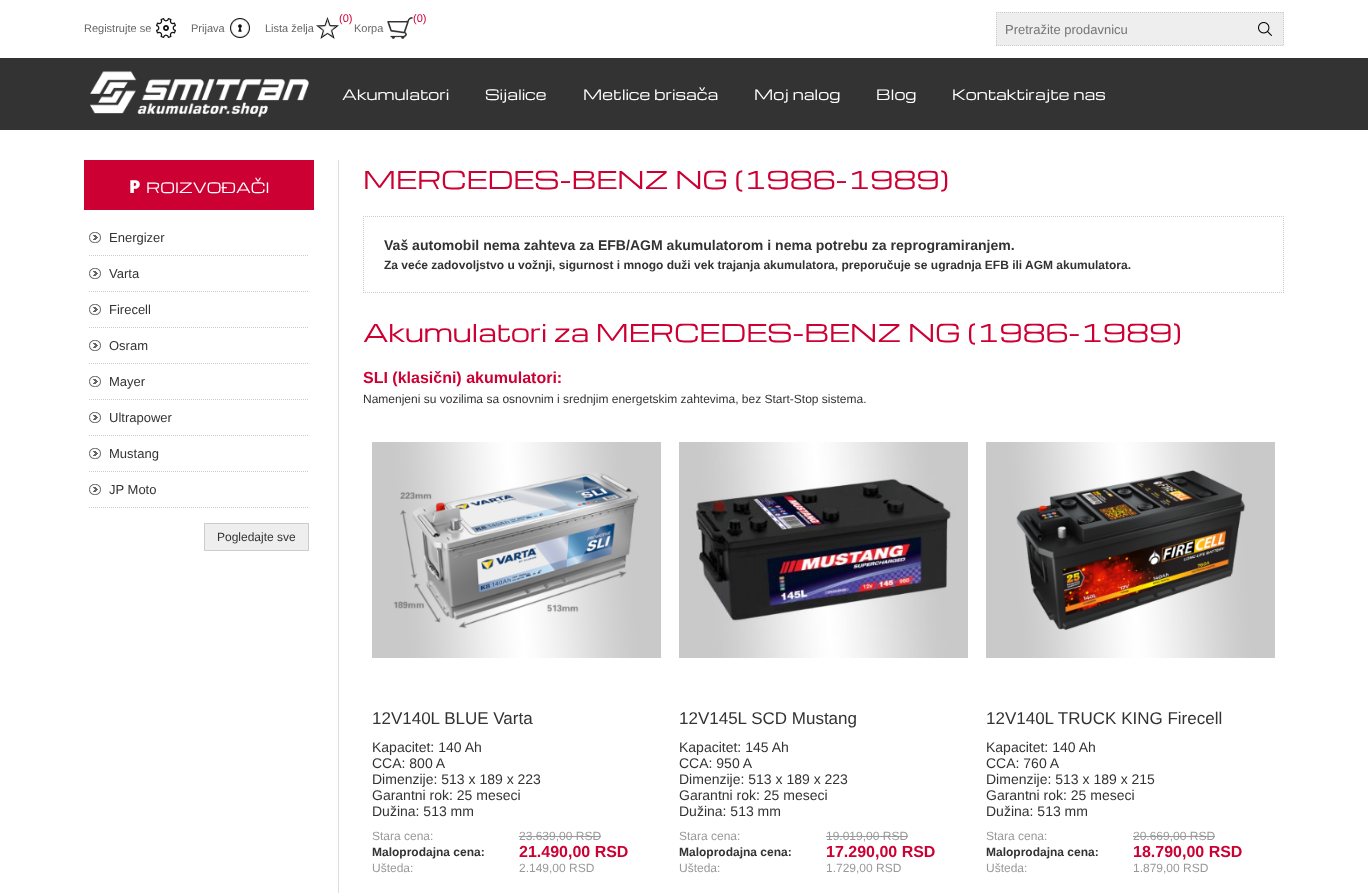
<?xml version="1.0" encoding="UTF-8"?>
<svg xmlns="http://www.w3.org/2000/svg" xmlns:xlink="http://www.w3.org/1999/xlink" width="1368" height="893">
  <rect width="100%" height="100%" fill="#ffffff" />
  <image x="156" y="18" width="20" height="20" xlink:href="image1.png" />
  <image x="230" y="18" width="20" height="20" xlink:href="image2.png" />
  <image x="316" y="17" width="23" height="22" xlink:href="image3.png" />
  <image x="387" y="17" width="26" height="22" xlink:href="image4.png" />
  <rect x="996" y="12" width="288" height="34" fill="#eeeeee" />
  <path d="M 996 12.5 h 288" fill="none" stroke="#cccccc" stroke-dasharray="1 1" />
  <path d="M 1283.5 12 v 34" fill="none" stroke="#cccccc" stroke-dasharray="1 1" />
  <path d="M 996 45.5 h 288" fill="none" stroke="#cccccc" stroke-dasharray="1 1" />
  <path d="M 996.5 12 v 34" fill="none" stroke="#cccccc" stroke-dasharray="1 1" />
  <image x="1258" y="22" width="14" height="14" xlink:href="image5.png" />
  <rect y="58" width="1368" height="72" fill="#333333" />
  <image x="90" y="71" width="219" height="47" xlink:href="image6.png" />
  <rect x="84" y="160" width="230" height="50" fill="#cc0033" />
  <path d="M 89 255.5 h 220" fill="none" stroke="#cccccc" stroke-dasharray="1 1" />
  <rect x="89" y="232" width="12" height="11" rx="5.5" fill="#666666" />
  <image x="89" y="232" width="12" height="11" xlink:href="image7.png" />
  <rect x="89.5" y="232.5" width="11" height="10" rx="5" fill="none" stroke="#666666" />
  <path d="M 89 291.5 h 220" fill="none" stroke="#cccccc" stroke-dasharray="1 1" />
  <rect x="89" y="268" width="12" height="11" rx="5.5" fill="#666666" />
  <image x="89" y="268" width="12" height="11" xlink:href="image7.png" />
  <rect x="89.5" y="268.5" width="11" height="10" rx="5" fill="none" stroke="#666666" />
  <path d="M 89 327.5 h 220" fill="none" stroke="#cccccc" stroke-dasharray="1 1" />
  <rect x="89" y="304" width="12" height="11" rx="5.5" fill="#666666" />
  <image x="89" y="304" width="12" height="11" xlink:href="image7.png" />
  <rect x="89.5" y="304.5" width="11" height="10" rx="5" fill="none" stroke="#666666" />
  <path d="M 89 363.5 h 220" fill="none" stroke="#cccccc" stroke-dasharray="1 1" />
  <rect x="89" y="340" width="12" height="11" rx="5.5" fill="#666666" />
  <image x="89" y="340" width="12" height="11" xlink:href="image7.png" />
  <rect x="89.5" y="340.5" width="11" height="10" rx="5" fill="none" stroke="#666666" />
  <path d="M 89 399.5 h 220" fill="none" stroke="#cccccc" stroke-dasharray="1 1" />
  <rect x="89" y="376" width="12" height="11" rx="5.5" fill="#666666" />
  <image x="89" y="376" width="12" height="11" xlink:href="image7.png" />
  <rect x="89.5" y="376.5" width="11" height="10" rx="5" fill="none" stroke="#666666" />
  <path d="M 89 435.5 h 220" fill="none" stroke="#cccccc" stroke-dasharray="1 1" />
  <rect x="89" y="412" width="12" height="11" rx="5.5" fill="#666666" />
  <image x="89" y="412" width="12" height="11" xlink:href="image7.png" />
  <rect x="89.5" y="412.5" width="11" height="10" rx="5" fill="none" stroke="#666666" />
  <path d="M 89 471.5 h 220" fill="none" stroke="#cccccc" stroke-dasharray="1 1" />
  <rect x="89" y="448" width="12" height="11" rx="5.5" fill="#666666" />
  <image x="89" y="448" width="12" height="11" xlink:href="image7.png" />
  <rect x="89.5" y="448.5" width="11" height="10" rx="5" fill="none" stroke="#666666" />
  <path d="M 89 507.5 h 220" fill="none" stroke="#cccccc" stroke-dasharray="1 1" />
  <rect x="89" y="484" width="12" height="11" rx="5.5" fill="#666666" />
  <image x="89" y="484" width="12" height="11" xlink:href="image7.png" />
  <rect x="89.5" y="484.5" width="11" height="10" rx="5" fill="none" stroke="#666666" />
  <rect x="204.5" y="523.5" width="104" height="27" fill="#eeeeee" stroke="#cccccc" />
  <rect x="338" y="160" width="1" height="733" fill="#dddddd" />
  <path d="M 363 216.5 h 921" fill="none" stroke="#cccccc" stroke-dasharray="1 1" />
  <path d="M 1283.5 216 v 77" fill="none" stroke="#cccccc" stroke-dasharray="1 1" />
  <path d="M 363 292.5 h 921" fill="none" stroke="#cccccc" stroke-dasharray="1 1" />
  <path d="M 363.5 216 v 77" fill="none" stroke="#cccccc" stroke-dasharray="1 1" />
  <image x="372" y="442" width="289" height="216" xlink:href="image8.png" />
  <rect x="519" y="836" width="82" height="1" fill="#999999" />
  <image x="679" y="442" width="289" height="216" xlink:href="image9.png" />
  <rect x="826" y="836" width="82" height="1" fill="#999999" />
  <image x="986" y="442" width="289" height="216" xlink:href="image10.png" />
  <rect x="1133" y="836" width="82" height="1" fill="#999999" />
  <text x="84" y="32" style="font-family: Liberation Sans; font-size: 11px; fill: #666666">Registrujte se</text>
  <text x="191" y="32" style="font-family: Liberation Sans; font-size: 11px; fill: #666666">Prijava</text>
  <text x="339" y="22" style="font-family: Liberation Sans; font-size: 11px; fill: #cc0033">(0)</text>
  <text x="265" y="32" style="font-family: Liberation Sans; font-size: 11px; fill: #666666">Lista želja</text>
  <text x="413" y="22" style="font-family: Liberation Sans; font-size: 11px; fill: #cc0033">(0)</text>
  <text x="354" y="32" style="font-family: Liberation Sans; font-size: 11px; fill: #666666">Korpa</text>
  <text x="1005" y="34" style="font-family: Liberation Sans; font-size: 13px; fill: #757575">Pretražite prodavnicu</text>
  <text x="342" y="100" style="font-family: Michroma; font-size: 14px; fill: #ffffff">Akumulatori</text>
  <text x="485" y="100" style="font-family: Michroma; font-size: 14px; fill: #ffffff">Sijalice</text>
  <text x="583" y="100" style="font-family: Michroma; font-size: 14px; fill: #ffffff">Metlice brisača</text>
  <text x="754" y="100" style="font-family: Michroma; font-size: 14px; fill: #ffffff">Moj nalog</text>
  <text x="876" y="100" style="font-family: Michroma; font-size: 14px; fill: #ffffff">Blog</text>
  <text x="952" y="100" style="font-family: Michroma; font-size: 14px; fill: #ffffff">Kontaktirajte nas</text>
  <text x="129" y="193" style="font-family: Noto Sans; font-size: 18px; font-weight: 900; fill: #ffffff">P</text>
  <text x="146" y="193" style="font-family: Michroma; font-size: 14px; fill: #ffffff">ROIZVOĐAČI</text>
  <text x="109" y="242" style="font-family: Liberation Sans; font-size: 13px; fill: #333333">Energizer</text>
  <text x="109" y="278" style="font-family: Liberation Sans; font-size: 13px; fill: #333333">Varta</text>
  <text x="109" y="314" style="font-family: Liberation Sans; font-size: 13px; fill: #333333">Firecell</text>
  <text x="109" y="350" style="font-family: Liberation Sans; font-size: 13px; fill: #333333">Osram</text>
  <text x="109" y="386" style="font-family: Liberation Sans; font-size: 13px; fill: #333333">Mayer</text>
  <text x="109" y="422" style="font-family: Liberation Sans; font-size: 13px; fill: #333333">Ultrapower</text>
  <text x="109" y="458" style="font-family: Liberation Sans; font-size: 13px; fill: #333333">Mustang</text>
  <text x="109" y="494" style="font-family: Liberation Sans; font-size: 13px; fill: #333333">JP Moto</text>
  <text x="217" y="541" style="font-family: Liberation Sans; font-size: 12px; fill: #333333">Pogledajte sve</text>
  <text x="363" y="189" style="font-family: Michroma; font-size: 24px; fill: #cc0033">MERCEDES-BENZ NG (1986-1989)</text>
  <text x="384" y="250" style="font-family: Liberation Sans; font-size: 14.05px; font-weight: bold; fill: #333333">Vaš automobil nema zahteva za EFB/AGM akumulatorom i nema potrebu za reprogramiranjem.</text>
  <text x="384" y="269" style="font-family: Liberation Sans; font-size: 12px; font-weight: bold; fill: #333333">Za veće zadovoljstvo u vožnji, sigurnost i mnogo duži vek trajanja akumulatora, preporučuje se ugradnja EFB ili AGM akumulatora.</text>
  <text x="363" y="342" style="font-family: Michroma; font-size: 24px; fill: #cc0033">Akumulatori za MERCEDES-BENZ NG (1986-1989)</text>
  <text x="363" y="383" style="font-family: Liberation Sans; font-size: 16px; font-weight: bold; fill: #cc0033">SLI (klasični) akumulatori:</text>
  <text x="363" y="403" style="font-family: Liberation Sans; font-size: 12px; fill: #333333">Namenjeni su vozilima sa osnovnim i srednjim energetskim zahtevima, bez Start-Stop sistema.</text>
  <text x="372" y="724" style="font-family: Liberation Sans; font-size: 17px; fill: #333333">12V140L BLUE Varta</text>
  <text x="372" y="752" style="font-family: Liberation Sans; font-size: 14px; fill: #333333">Kapacitet: 140 Ah</text>
  <text x="372" y="768" style="font-family: Liberation Sans; font-size: 14px; fill: #333333">CCA: 800 A</text>
  <text x="372" y="784" style="font-family: Liberation Sans; font-size: 14px; fill: #333333">Dimenzije: 513 x 189 x 223</text>
  <text x="372" y="800" style="font-family: Liberation Sans; font-size: 14px; fill: #333333">Garantni rok: 25 meseci</text>
  <text x="372" y="816" style="font-family: Liberation Sans; font-size: 14px; fill: #333333">Dužina: 513 mm</text>
  <text x="372" y="840" style="font-family: Liberation Sans; font-size: 12px; fill: #999999">Stara cena:</text>
  <text x="519" y="840" style="font-family: Liberation Sans; font-size: 12px; fill: #999999">23.639,00 RSD</text>
  <text x="372" y="856" style="font-family: Liberation Sans; font-size: 12px; font-weight: bold; fill: #333333">Maloprodajna cena:</text>
  <text x="519" y="857" style="font-family: Liberation Sans; font-size: 16px; font-weight: bold; fill: #cc0033">21.490,00 RSD</text>
  <text x="372" y="872" style="font-family: Liberation Sans; font-size: 12px; fill: #999999">Ušteda:</text>
  <text x="519" y="872" style="font-family: Liberation Sans; font-size: 12px; fill: #999999">2.149,00 RSD</text>
  <text x="679" y="724" style="font-family: Liberation Sans; font-size: 17px; fill: #333333">12V145L SCD Mustang</text>
  <text x="679" y="752" style="font-family: Liberation Sans; font-size: 14px; fill: #333333">Kapacitet: 145 Ah</text>
  <text x="679" y="768" style="font-family: Liberation Sans; font-size: 14px; fill: #333333">CCA: 950 A</text>
  <text x="679" y="784" style="font-family: Liberation Sans; font-size: 14px; fill: #333333">Dimenzije: 513 x 189 x 223</text>
  <text x="679" y="800" style="font-family: Liberation Sans; font-size: 14px; fill: #333333">Garantni rok: 25 meseci</text>
  <text x="679" y="816" style="font-family: Liberation Sans; font-size: 14px; fill: #333333">Dužina: 513 mm</text>
  <text x="679" y="840" style="font-family: Liberation Sans; font-size: 12px; fill: #999999">Stara cena:</text>
  <text x="826" y="840" style="font-family: Liberation Sans; font-size: 12px; fill: #999999">19.019,00 RSD</text>
  <text x="679" y="856" style="font-family: Liberation Sans; font-size: 12px; font-weight: bold; fill: #333333">Maloprodajna cena:</text>
  <text x="826" y="857" style="font-family: Liberation Sans; font-size: 16px; font-weight: bold; fill: #cc0033">17.290,00 RSD</text>
  <text x="679" y="872" style="font-family: Liberation Sans; font-size: 12px; fill: #999999">Ušteda:</text>
  <text x="826" y="872" style="font-family: Liberation Sans; font-size: 12px; fill: #999999">1.729,00 RSD</text>
  <text x="986" y="724" style="font-family: Liberation Sans; font-size: 17px; fill: #333333">12V140L TRUCK KING Firecell</text>
  <text x="986" y="752" style="font-family: Liberation Sans; font-size: 14px; fill: #333333">Kapacitet: 140 Ah</text>
  <text x="986" y="768" style="font-family: Liberation Sans; font-size: 14px; fill: #333333">CCA: 760 A</text>
  <text x="986" y="784" style="font-family: Liberation Sans; font-size: 14px; fill: #333333">Dimenzije: 513 x 189 x 215</text>
  <text x="986" y="800" style="font-family: Liberation Sans; font-size: 14px; fill: #333333">Garantni rok: 25 meseci</text>
  <text x="986" y="816" style="font-family: Liberation Sans; font-size: 14px; fill: #333333">Dužina: 513 mm</text>
  <text x="986" y="840" style="font-family: Liberation Sans; font-size: 12px; fill: #999999">Stara cena:</text>
  <text x="1133" y="840" style="font-family: Liberation Sans; font-size: 12px; fill: #999999">20.669,00 RSD</text>
  <text x="986" y="856" style="font-family: Liberation Sans; font-size: 12px; font-weight: bold; fill: #333333">Maloprodajna cena:</text>
  <text x="1133" y="857" style="font-family: Liberation Sans; font-size: 16px; font-weight: bold; fill: #cc0033">18.790,00 RSD</text>
  <text x="986" y="872" style="font-family: Liberation Sans; font-size: 12px; fill: #999999">Ušteda:</text>
  <text x="1133" y="872" style="font-family: Liberation Sans; font-size: 12px; fill: #999999">1.879,00 RSD</text>
</svg>
